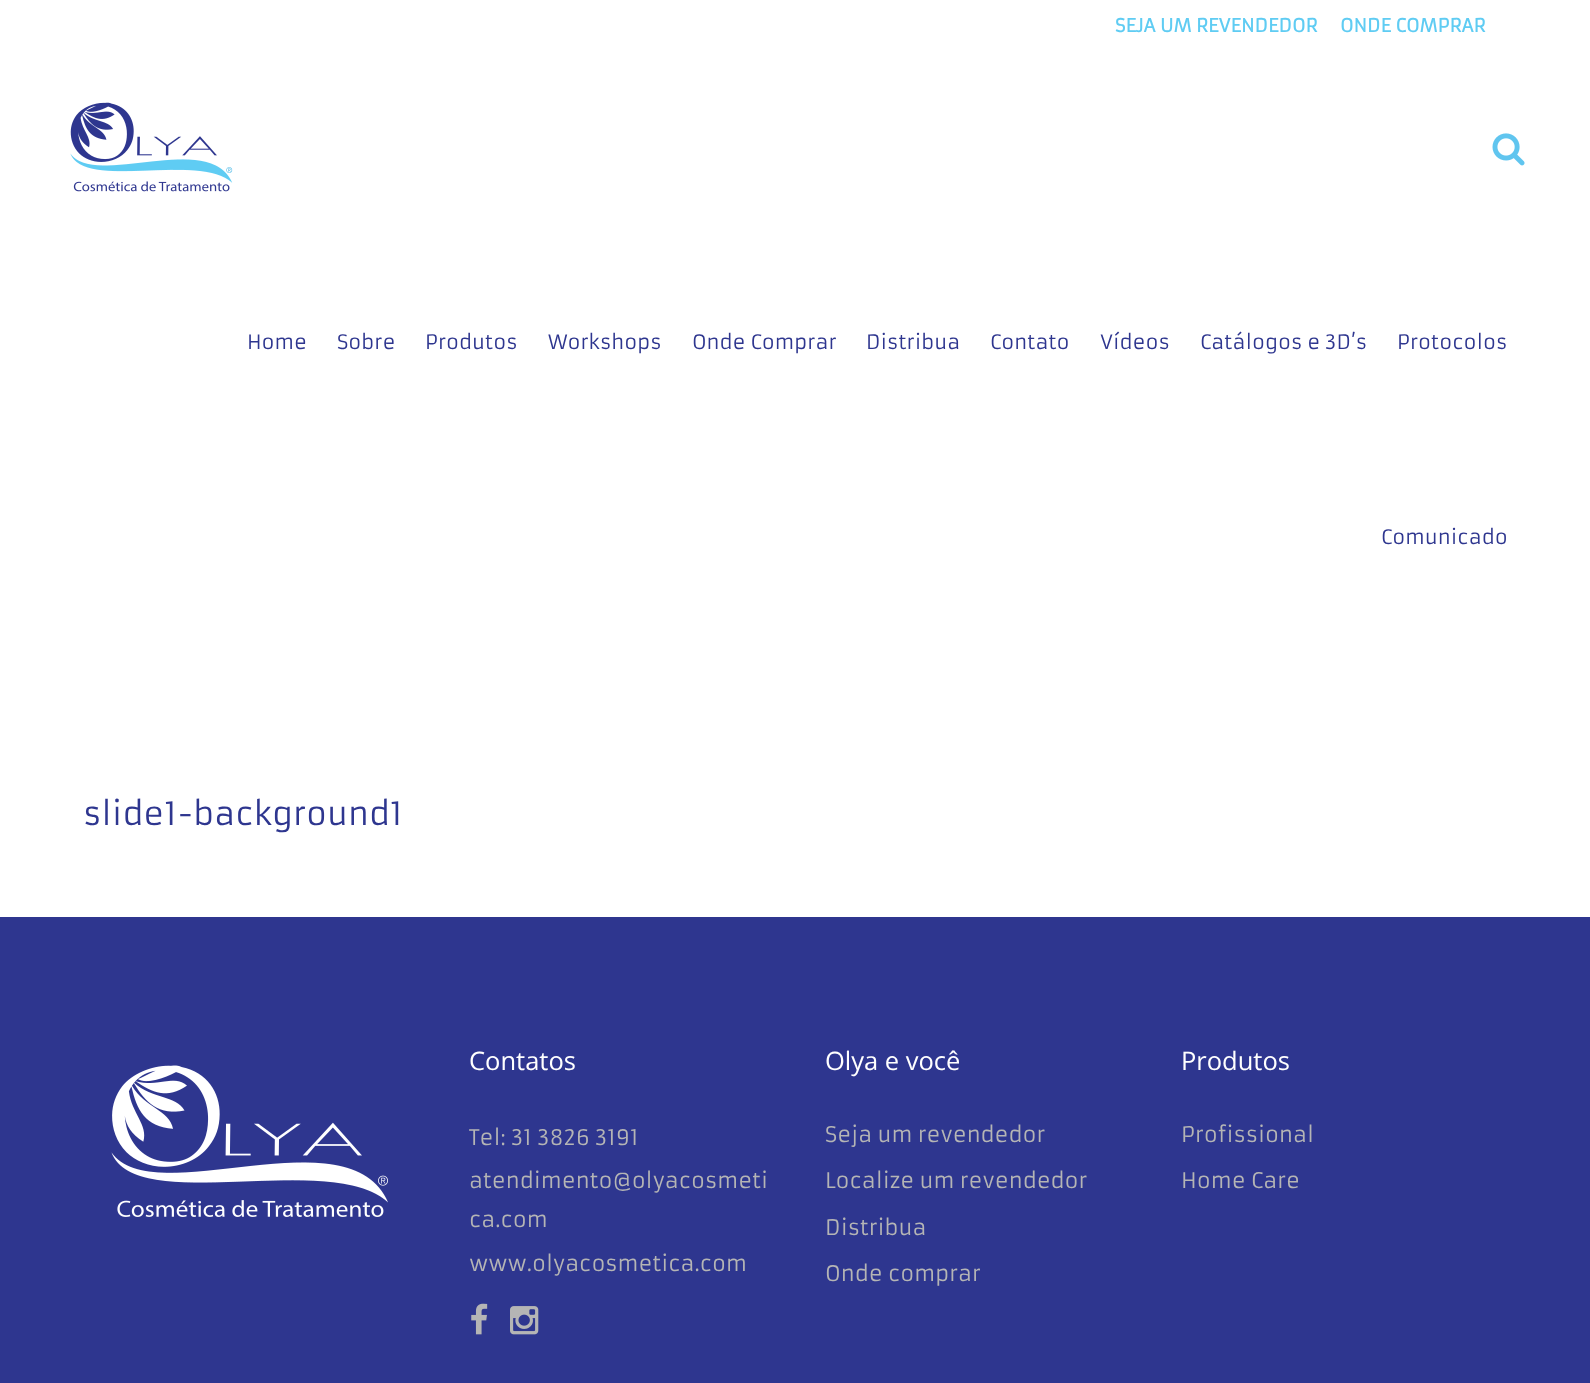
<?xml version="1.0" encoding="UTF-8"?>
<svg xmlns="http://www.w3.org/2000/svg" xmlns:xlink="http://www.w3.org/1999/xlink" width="1590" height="1383">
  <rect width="100%" height="100%" fill="#ffffff" />
  <image x="70" y="102" width="163" height="90" xlink:href="image1.png" />
  <image x="1492" y="133" width="33" height="33" xlink:href="image2.png" />
  <rect y="917" width="1590" height="466" fill="#2e368f" />
  <image x="111" y="1065" width="277" height="152" xlink:href="image3.png" />
  <image x="471" y="1303" width="17" height="32" xlink:href="image4.png" />
  <image x="510" y="1306" width="29" height="29" xlink:href="image5.png" />
  <text x="1115" y="32" style="font-family: Armata; font-size: 18px; font-weight: bold; fill: #5fccf3">SEJA UM REVENDEDOR</text>
  <text x="1340" y="32" style="font-family: Armata; font-size: 18px; font-weight: bold; fill: #5fccf3">ONDE COMPRAR</text>
  <text x="247" y="349" style="font-family: Armata; font-size: 19.5px; fill: #2e368f">Home</text>
  <text x="337" y="349" style="font-family: Armata; font-size: 19.5px; fill: #2e368f">Sobre</text>
  <text x="425" y="349" style="font-family: Armata; font-size: 19.5px; fill: #2e368f">Produtos</text>
  <text x="548" y="349" style="font-family: Armata; font-size: 19.5px; fill: #2e368f">Workshops</text>
  <text x="692" y="349" style="font-family: Armata; font-size: 19.5px; fill: #2e368f">Onde Comprar</text>
  <text x="866" y="349" style="font-family: Armata; font-size: 19.5px; fill: #2e368f">Distribua</text>
  <text x="990" y="349" style="font-family: Armata; font-size: 19.5px; fill: #2e368f">Contato</text>
  <text x="1100" y="349" style="font-family: Armata; font-size: 19.5px; fill: #2e368f">Vídeos</text>
  <text x="1200" y="349" style="font-family: Armata; font-size: 19.5px; fill: #2e368f">Catálogos e 3D’s</text>
  <text x="1397" y="349" style="font-family: Armata; font-size: 19.5px; fill: #2e368f">Protocolos</text>
  <text x="1381" y="544" style="font-family: Armata; font-size: 19.5px; fill: #2e368f">Comunicado</text>
  <text x="83" y="825" style="font-family: Armata; font-size: 31.5px; fill: #2e368f">slide1-background1</text>
  <text x="469" y="1070" style="font-family: Open Sans; font-size: 25.5px; fill: #ffffff">Contatos</text>
  <text x="469" y="1145" style="font-family: Armata; font-size: 21px; fill: #b5b5b5">Tel: 31 3826 3191</text>
  <text x="469" y="1188" style="font-family: Armata; font-size: 21px; fill: #b5b5b5">atendimento@olyacosmeti</text>
  <text x="469" y="1227" style="font-family: Armata; font-size: 21px; fill: #b5b5b5">ca.com</text>
  <text x="469" y="1271" style="font-family: Armata; font-size: 21px; fill: #b5b5b5">www.olyacosmetica.com</text>
  <text x="825" y="1070" style="font-family: Open Sans; font-size: 25.5px; fill: #ffffff">Olya e você</text>
  <text x="825" y="1142" style="font-family: Armata; font-size: 21px; fill: #b5b5b5">Seja um revendedor</text>
  <text x="825" y="1188" style="font-family: Armata; font-size: 21px; fill: #b5b5b5">Localize um revendedor</text>
  <text x="825" y="1235" style="font-family: Armata; font-size: 21px; fill: #b5b5b5">Distribua</text>
  <text x="825" y="1281" style="font-family: Armata; font-size: 21px; fill: #b5b5b5">Onde comprar</text>
  <text x="1181" y="1070" style="font-family: Open Sans; font-size: 25.5px; fill: #ffffff">Produtos</text>
  <text x="1181" y="1142" style="font-family: Armata; font-size: 21px; fill: #b5b5b5">Profissional</text>
  <text x="1181" y="1188" style="font-family: Armata; font-size: 21px; fill: #b5b5b5">Home Care</text>
</svg>
